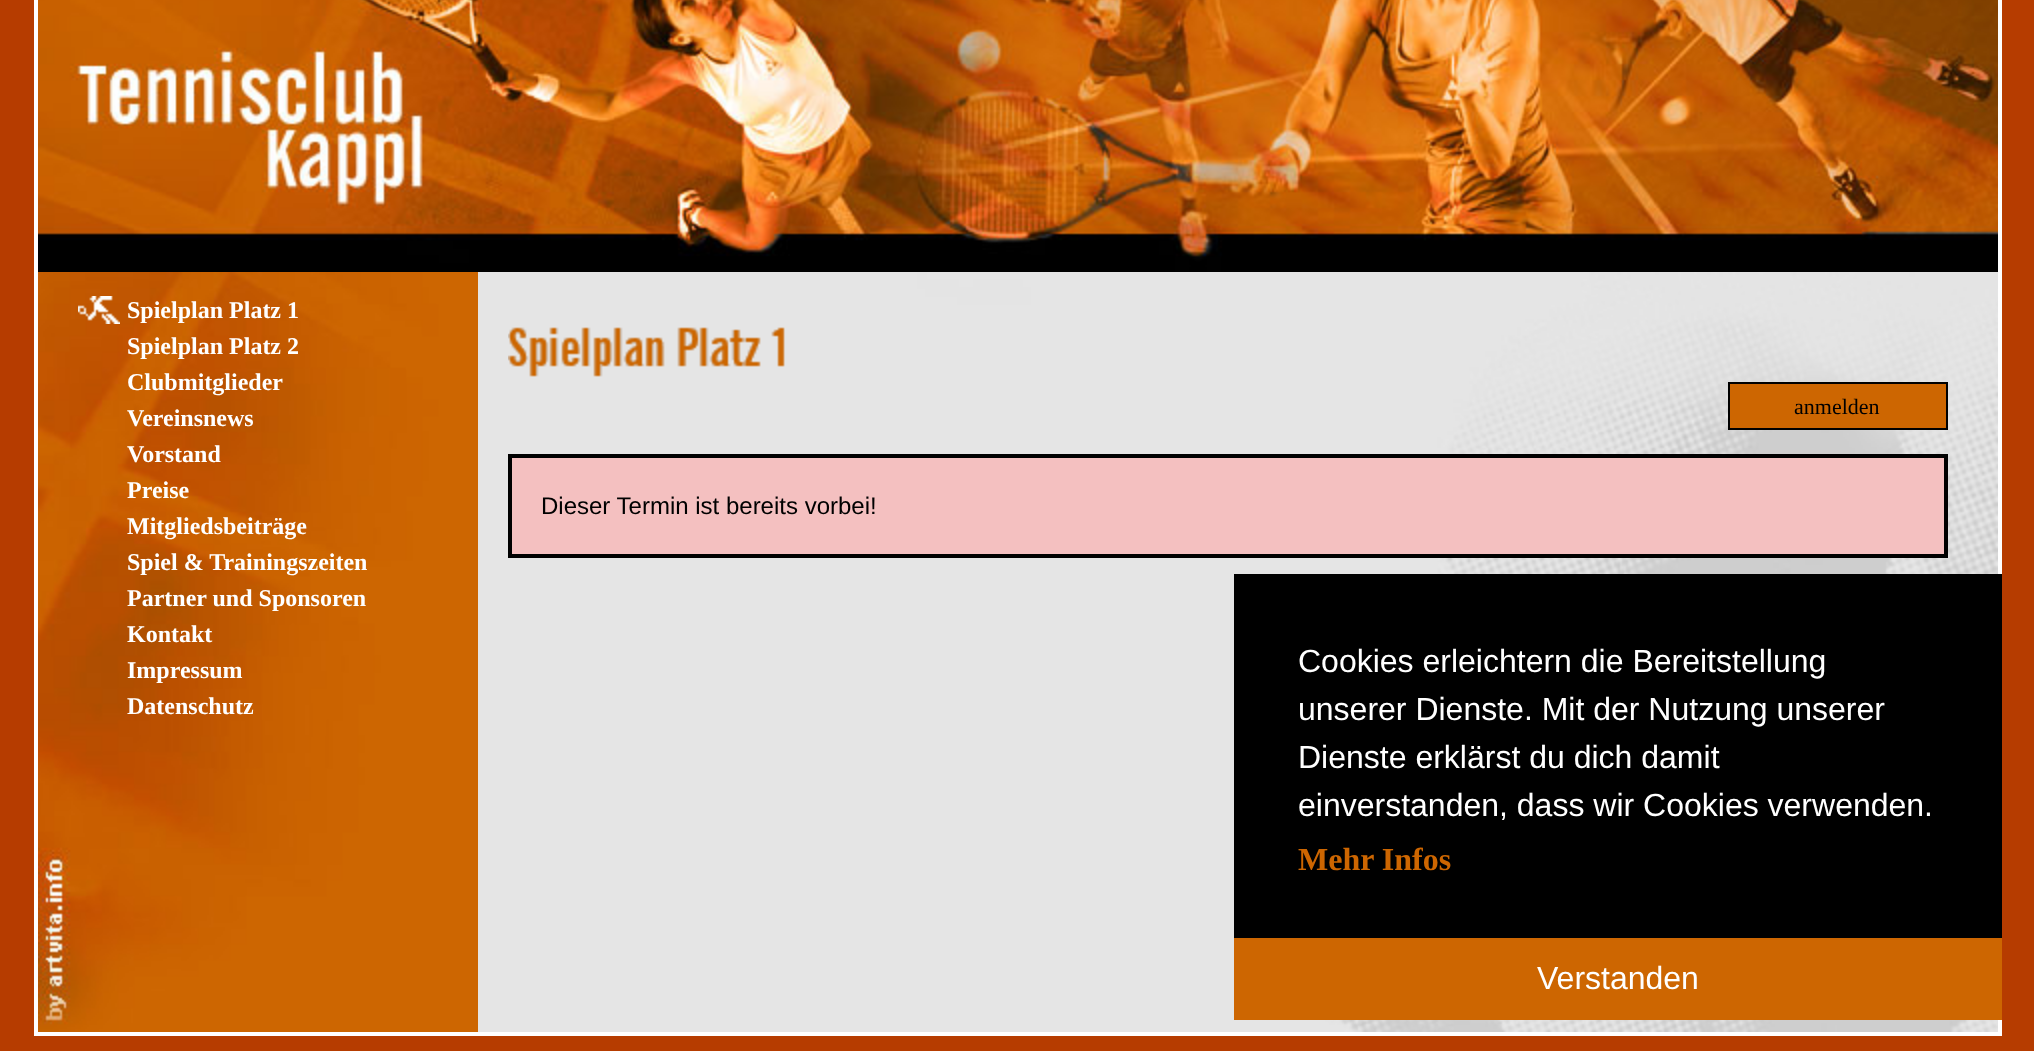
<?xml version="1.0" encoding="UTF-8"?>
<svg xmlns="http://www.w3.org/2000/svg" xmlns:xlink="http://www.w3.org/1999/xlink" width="2034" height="1051">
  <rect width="100%" height="100%" fill="#b63c00" />
  <rect x="36" y="-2" width="1964" height="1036" fill="none" stroke="#ffffff" stroke-width="4" />
  <image x="478" y="272" width="1520" height="760" xlink:href="image1.png" />
  <image x="38" y="0" width="1960" height="272" xlink:href="image2.png" />
  <image x="38" y="272" width="440" height="760" xlink:href="image3.png" />
  <image x="78" y="296" width="42" height="28" xlink:href="image4.png" />
  <image x="508" y="327" width="277" height="50" xlink:href="image5.png" />
  <rect x="1729" y="383" width="218" height="46" fill="#cd6601" stroke="#000000" stroke-width="2" />
  <rect x="510" y="456" width="1436" height="100" fill="#f4c0c0" stroke="#000000" stroke-width="4" />
  <rect x="1234" y="574" width="768" height="364" fill="#000000" />
  <rect x="1234" y="938" width="768" height="82" fill="#cd6601" />
  <text x="127" y="318" style="font-family: Liberation Serif; font-size: 24px; font-weight: bold; fill: #ffffff">Spielplan Platz 1</text>
  <text x="127" y="354" style="font-family: Liberation Serif; font-size: 24px; font-weight: bold; fill: #ffffff">Spielplan Platz 2</text>
  <text x="127" y="390" style="font-family: Liberation Serif; font-size: 24px; font-weight: bold; fill: #ffffff">Clubmitglieder</text>
  <text x="127" y="426" style="font-family: Liberation Serif; font-size: 24px; font-weight: bold; fill: #ffffff">Vereinsnews</text>
  <text x="127" y="462" style="font-family: Liberation Serif; font-size: 24px; font-weight: bold; fill: #ffffff">Vorstand</text>
  <text x="127" y="498" style="font-family: Liberation Serif; font-size: 24px; font-weight: bold; fill: #ffffff">Preise</text>
  <text x="127" y="534" style="font-family: Liberation Serif; font-size: 24px; font-weight: bold; fill: #ffffff">Mitgliedsbeiträge</text>
  <text x="127" y="570" style="font-family: Liberation Serif; font-size: 24px; font-weight: bold; fill: #ffffff">Spiel &amp; Trainingszeiten</text>
  <text x="127" y="606" style="font-family: Liberation Serif; font-size: 24px; font-weight: bold; fill: #ffffff">Partner und Sponsoren</text>
  <text x="127" y="642" style="font-family: Liberation Serif; font-size: 24px; font-weight: bold; fill: #ffffff">Kontakt</text>
  <text x="127" y="678" style="font-family: Liberation Serif; font-size: 24px; font-weight: bold; fill: #ffffff">Impressum</text>
  <text x="127" y="714" style="font-family: Liberation Serif; font-size: 24px; font-weight: bold; fill: #ffffff">Datenschutz</text>
  <text x="1794" y="414" style="font-family: Liberation Serif; font-size: 22px; fill: #000000">anmelden</text>
  <text x="541" y="514" style="font-family: Liberation Sans; font-size: 24px; fill: #000000">Dieser Termin ist bereits vorbei!</text>
  <text x="1298" y="672" style="font-family: Liberation Sans; font-size: 32px; fill: #ffffff">Cookies erleichtern die Bereitstellung</text>
  <text x="1298" y="720" style="font-family: Liberation Sans; font-size: 32px; fill: #ffffff">unserer Dienste. Mit der Nutzung unserer</text>
  <text x="1298" y="768" style="font-family: Liberation Sans; font-size: 32px; fill: #ffffff">Dienste erklärst du dich damit</text>
  <text x="1298" y="816" style="font-family: Liberation Sans; font-size: 32px; fill: #ffffff">einverstanden, dass wir Cookies verwenden.</text>
  <text x="1298" y="870" style="font-family: Liberation Serif; font-size: 32px; font-weight: bold; fill: #cd6601">Mehr Infos</text>
  <text x="1537" y="989" style="font-family: Liberation Sans; font-size: 32px; fill: #ffffff">Verstanden</text>
</svg>
